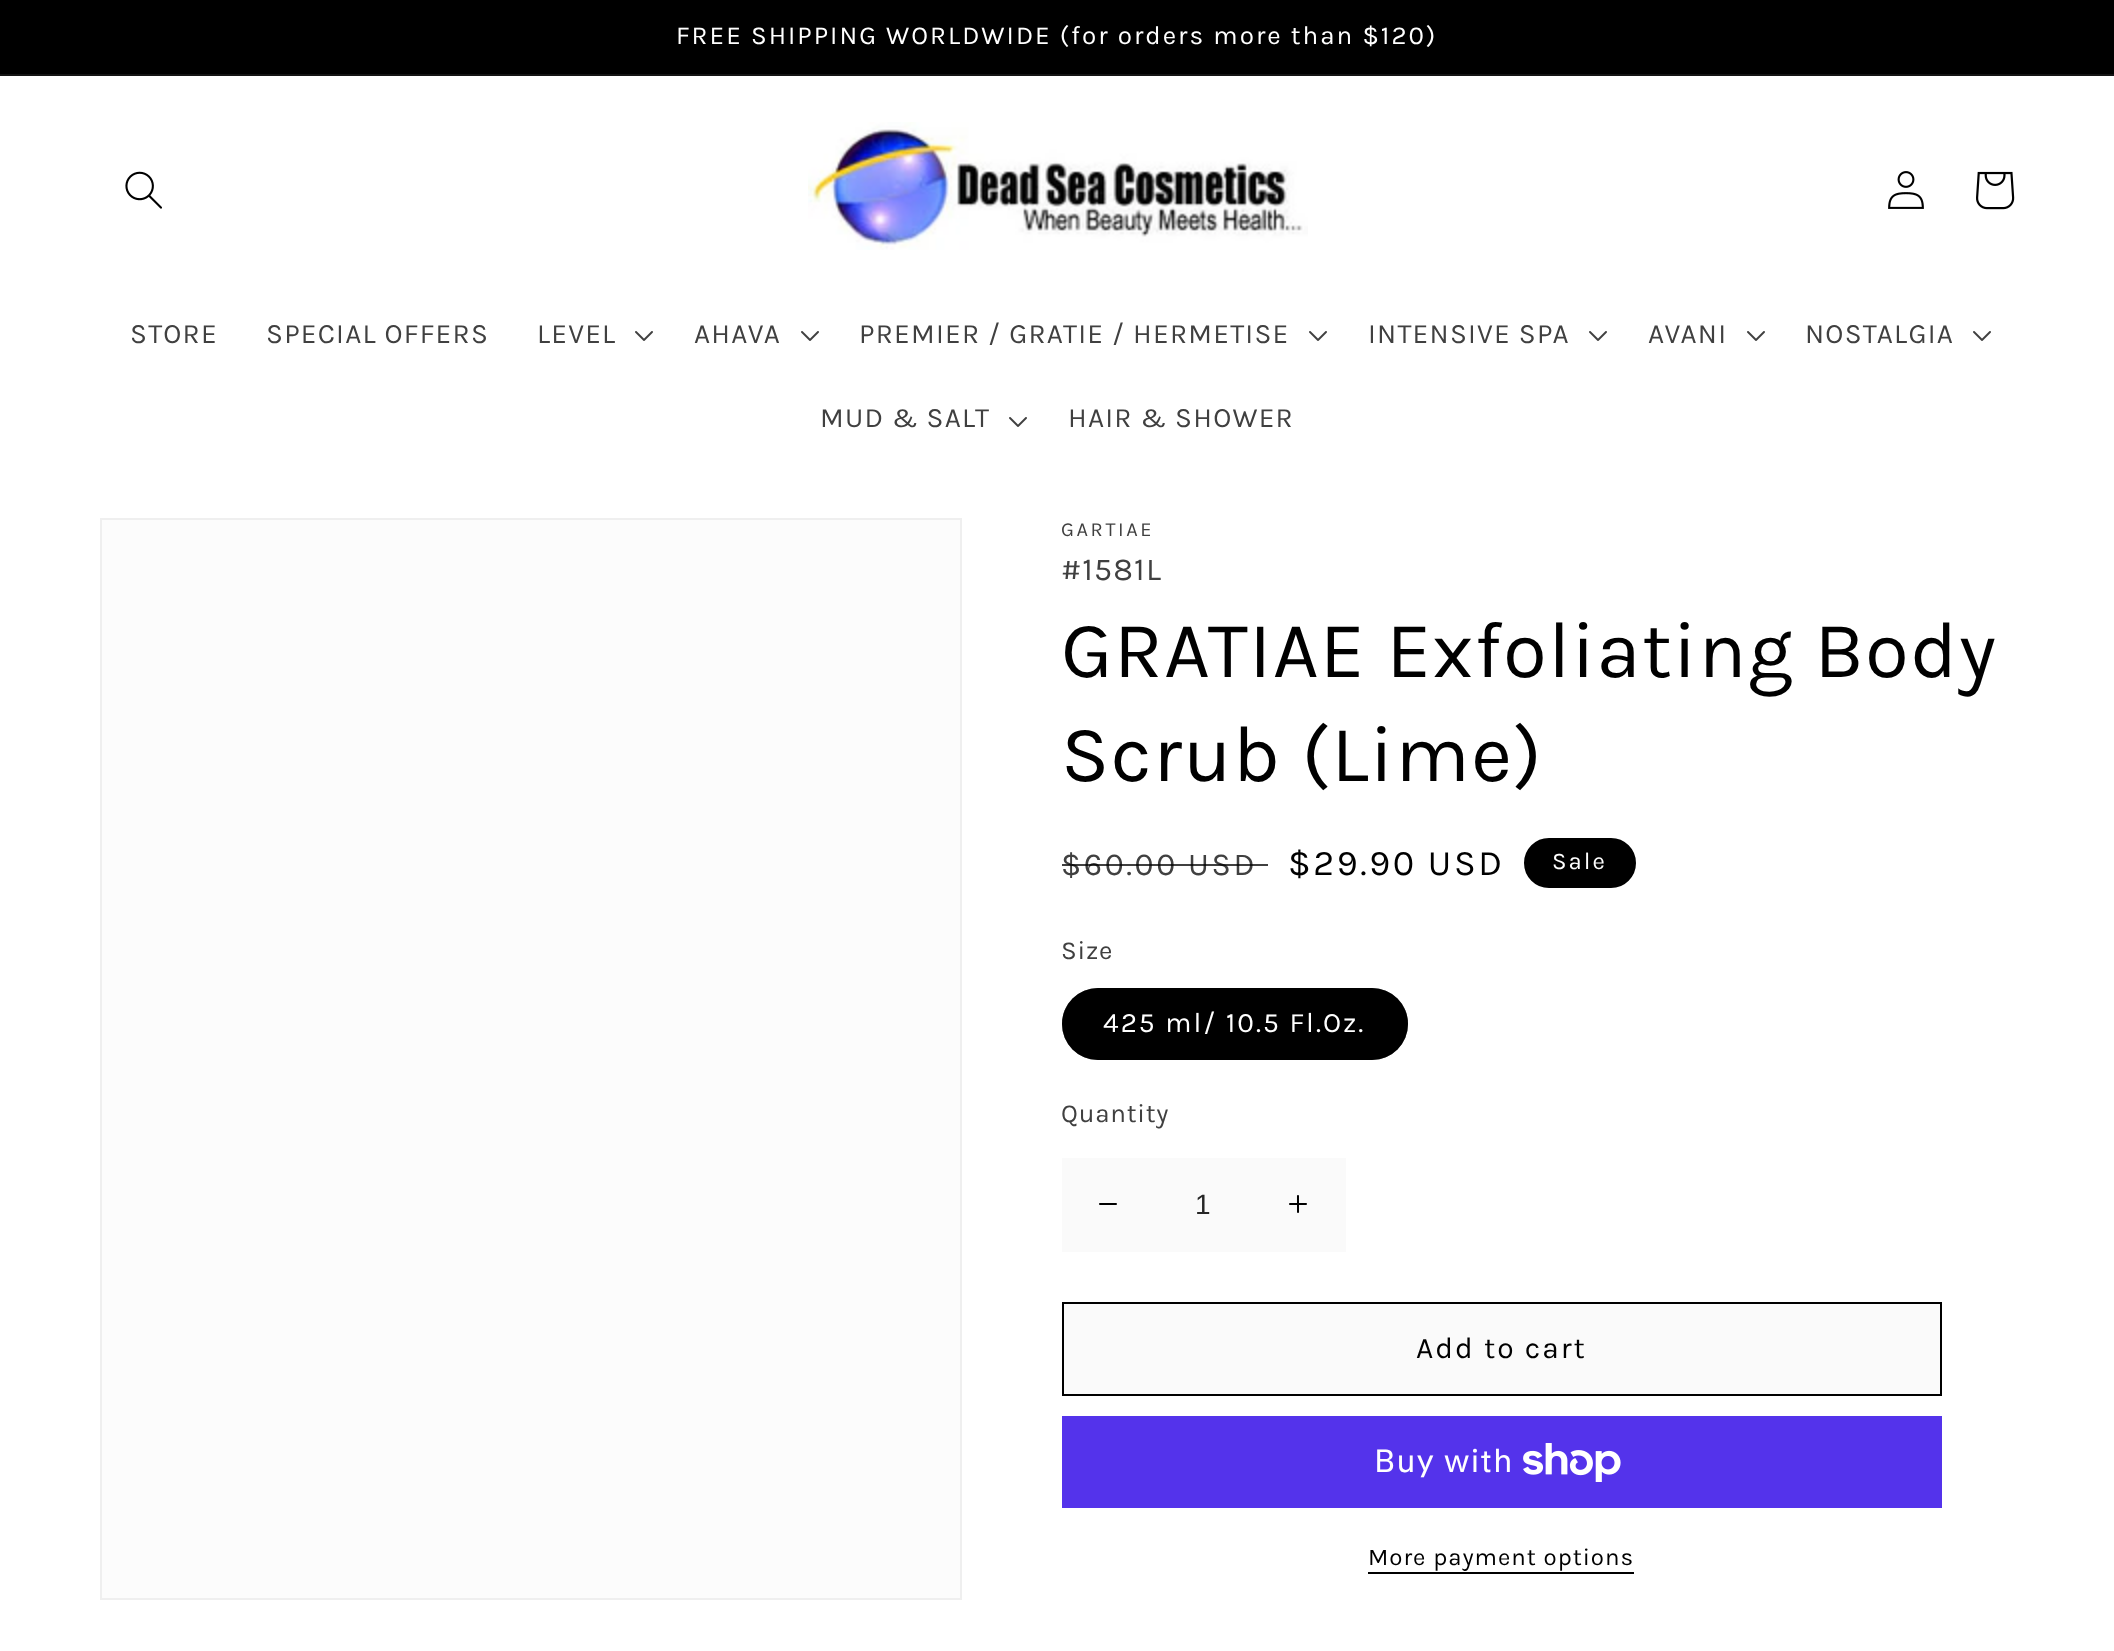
<?xml version="1.0" encoding="UTF-8"?>
<svg xmlns="http://www.w3.org/2000/svg" xmlns:xlink="http://www.w3.org/1999/xlink" width="2114" height="1651">
  <defs>
    <radialGradient id="g1" gradientUnits="userSpaceOnUse" cx="0" cy="0" r="1" gradientTransform="matrix(1495 0 0 1168 1057 826)"><stop offset="1" stop-color="#fcfcfc" /><stop offset="1" stop-color="#78c4f5" /></radialGradient>
  </defs>
  <rect width="100%" height="100%" fill="#ffffff" />
  <rect width="2114" height="74" fill="#000000" />
  <rect y="74" width="2114" height="2" fill="#141414" />
  <image x="125" y="171" width="37" height="38" xlink:href="image1.png" />
  <image x="808" y="122" width="500" height="128" xlink:href="image2.png" />
  <image x="1888" y="171" width="36" height="38" xlink:href="image3.png" />
  <image x="1976" y="171" width="39" height="39" xlink:href="image4.png" />
  <image x="635" y="331" width="18" height="10" xlink:href="image5.png" />
  <image x="801" y="331" width="18" height="10" xlink:href="image5.png" />
  <image x="1309" y="331" width="18" height="10" xlink:href="image5.png" />
  <image x="1589" y="331" width="18" height="10" xlink:href="image5.png" />
  <image x="1747" y="331" width="18" height="10" xlink:href="image5.png" />
  <image x="1973" y="331" width="18" height="10" xlink:href="image5.png" />
  <image x="1009" y="417" width="18" height="10" xlink:href="image5.png" />
  <rect x="102" y="520" width="858" height="1078" fill="url(#g1)" />
  <rect x="101" y="519" width="860" height="1080" fill="none" stroke="#efefef" stroke-width="2" />
  <rect x="1525" y="839" width="110" height="48" rx="24" fill="#000000" stroke="#000000" stroke-width="2" />
  <rect x="1062" y="988" width="346" height="72" rx="36" fill="#000000" />
  <rect x="1063" y="989" width="344" height="70" rx="35" fill="none" stroke="#000000" stroke-opacity="0.55" stroke-width="2" />
  <rect x="1062" y="1158" width="284" height="94" fill="#fafafa" />
  <image x="1099" y="1203" width="18" height="2" xlink:href="image6.png" />
  <image x="1289" y="1195" width="18" height="18" xlink:href="image7.png" />
  <rect x="1064" y="1304" width="876" height="90" fill="#fafafa" />
  <rect x="1063" y="1303" width="878" height="92" fill="none" stroke="#000000" stroke-width="2" />
  <rect x="1062" y="1416" width="880" height="92" fill="#5433eb" />
  <image x="1523" y="1443" width="98" height="39" xlink:href="image8.png" />
  <rect x="1368" y="1572" width="266" height="2" fill="#000000" />
  <text x="676" y="44" style="font-family: Karla; font-size: 26px; letter-spacing: 2px; fill: #ffffff">FREE SHIPPING WORLDWIDE (for orders more than $120)</text>
  <text x="130" y="343" style="font-family: Karla; font-size: 28px; letter-spacing: 1.2px; fill: #404040">STORE</text>
  <text x="266" y="343" style="font-family: Karla; font-size: 28px; letter-spacing: 1.2px; fill: #404040">SPECIAL OFFERS</text>
  <text x="537" y="343" style="font-family: Karla; font-size: 28px; letter-spacing: 1.2px; fill: #404040">LEVEL</text>
  <text x="694" y="343" style="font-family: Karla; font-size: 28px; letter-spacing: 1.2px; fill: #404040">AHAVA</text>
  <text x="859" y="343" style="font-family: Karla; font-size: 28px; letter-spacing: 1.2px; fill: #404040">PREMIER / GRATIE / HERMETISE</text>
  <text x="1368" y="343" style="font-family: Karla; font-size: 28px; letter-spacing: 1.2px; fill: #404040">INTENSIVE SPA</text>
  <text x="1648" y="343" style="font-family: Karla; font-size: 28px; letter-spacing: 1.2px; fill: #404040">AVANI</text>
  <text x="1805" y="343" style="font-family: Karla; font-size: 28px; letter-spacing: 1.2px; fill: #404040">NOSTALGIA</text>
  <text x="820" y="427" style="font-family: Karla; font-size: 28px; letter-spacing: 1.2px; fill: #404040">MUD &amp; SALT</text>
  <text x="1068" y="427" style="font-family: Karla; font-size: 28px; letter-spacing: 1.2px; fill: #404040">HAIR &amp; SHOWER</text>
  <text x="1061" y="536" style="font-family: Karla; font-size: 20px; letter-spacing: 2.6px; fill: #404040">GARTIAE</text>
  <text x="1061" y="580" style="font-family: Karla; font-size: 32px; letter-spacing: 1.2px; fill: #404040">#1581L</text>
  <text x="1061" y="677" style="font-family: Karla; font-size: 80px; letter-spacing: 1.2px; fill: #000000">GRATIAE Exfoliating Body</text>
  <text x="1061" y="781" style="font-family: Karla; font-size: 80px; letter-spacing: 1.2px; fill: #000000">Scrub (Lime)</text>
  <text x="1061" y="875" style="font-family: Karla; font-size: 32px; letter-spacing: 2.6px; fill: #404040">$60.00 USD</text>
  <rect x="1062" y="864" width="206" height="2" fill="#000000" fill-opacity="0.75" />
  <text x="1288" y="875" style="font-family: Karla; font-size: 36px; letter-spacing: 2.6px; fill: #000000">$29.90 USD</text>
  <text x="1552" y="869" style="font-family: Karla; font-size: 24px; letter-spacing: 2px; fill: #ffffff">Sale</text>
  <text x="1061" y="959" style="font-family: Karla; font-size: 26px; letter-spacing: 0.75px; fill: #404040">Size</text>
  <text x="1103" y="1032" style="font-family: Karla; font-size: 28px; letter-spacing: 2px; fill: #ffffff">425 ml/ 10.5 Fl.Oz.</text>
  <text x="1061" y="1122" style="font-family: Karla; font-size: 26px; letter-spacing: 0.75px; fill: #404040">Quantity</text>
  <text x="1195" y="1214" style="font-family: Liberation Sans; font-size: 28px; fill: #262626">1</text>
  <text x="1416" y="1358" style="font-family: Karla; font-size: 30px; letter-spacing: 2px; fill: #000000">Add to cart</text>
  <text x="1374" y="1472" style="font-family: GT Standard; font-size: 32px; letter-spacing: 1.2px; fill: #ffffff">Buy with</text>
  <text x="1368" y="1565" style="font-family: Karla; font-size: 24px; letter-spacing: 1px; fill: #000000">More payment options</text>
</svg>
